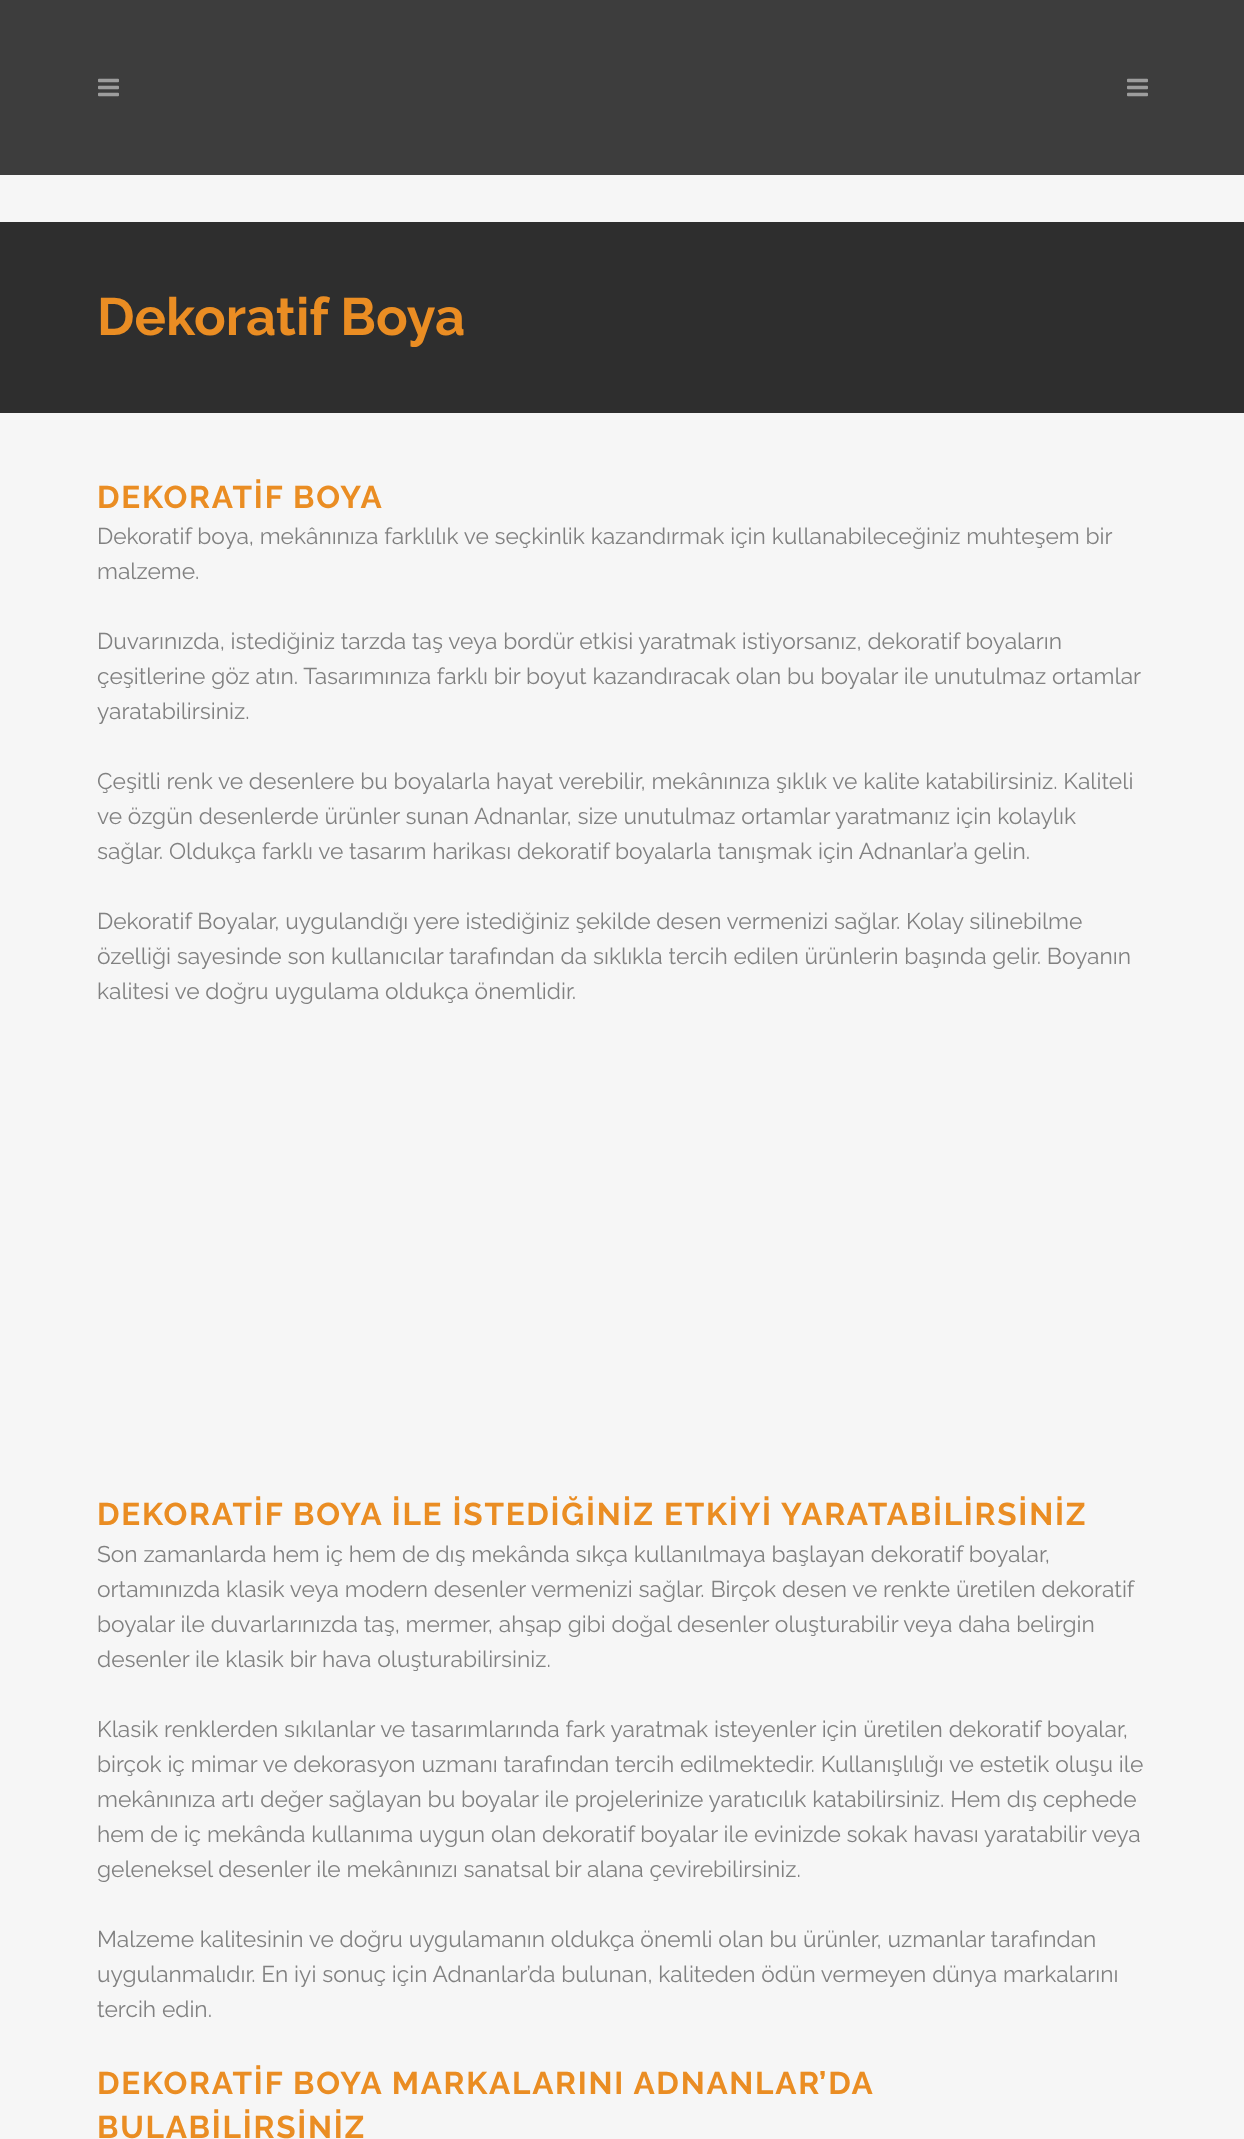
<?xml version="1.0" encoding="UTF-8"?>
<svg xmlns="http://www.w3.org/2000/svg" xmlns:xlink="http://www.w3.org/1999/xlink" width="1244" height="2139">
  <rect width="100%" height="100%" fill="#f6f6f6" />
  <rect width="1244" height="175" fill="#3d3d3d" />
  <image x="98" y="78" width="21" height="19" xlink:href="image1.png" />
  <image x="1127" y="78" width="21" height="19" xlink:href="image1.png" />
  <rect y="222" width="1244" height="191" fill="#2e2e2e" />
  <text x="97" y="335" style="font-family: Raleway; font-size: 52.5px; font-weight: bold; fill: #ea8d23">Dekoratif Boya</text>
  <text x="97" y="508" style="font-family: Raleway; font-size: 31.5px; font-weight: bold; letter-spacing: 1.75px; fill: #ea8d23">DEKORATİF BOYA</text>
  <text x="97" y="544" style="font-family: Raleway; font-size: 22.75px; fill: #818181">Dekoratif boya, mekânınıza farklılık ve seçkinlik kazandırmak için kullanabileceğiniz muhteşem bir</text>
  <text x="97" y="579" style="font-family: Raleway; font-size: 22.75px; fill: #818181">malzeme.</text>
  <text x="97" y="649" style="font-family: Raleway; font-size: 22.75px; fill: #818181">Duvarınızda, istediğiniz tarzda taş veya bordür etkisi yaratmak istiyorsanız, dekoratif boyaların</text>
  <text x="97" y="684" style="font-family: Raleway; font-size: 22.75px; fill: #818181">çeşitlerine göz atın. Tasarımınıza farklı bir boyut kazandıracak olan bu boyalar ile unutulmaz ortamlar</text>
  <text x="97" y="719" style="font-family: Raleway; font-size: 22.75px; fill: #818181">yaratabilirsiniz.</text>
  <text x="97" y="789" style="font-family: Raleway; font-size: 22.75px; fill: #818181">Çeşitli renk ve desenlere bu boyalarla hayat verebilir, mekânınıza şıklık ve kalite katabilirsiniz. Kaliteli</text>
  <text x="97" y="824" style="font-family: Raleway; font-size: 22.75px; fill: #818181">ve özgün desenlerde ürünler sunan Adnanlar, size unutulmaz ortamlar yaratmanız için kolaylık</text>
  <text x="97" y="859" style="font-family: Raleway; font-size: 22.75px; fill: #818181">sağlar. Oldukça farklı ve tasarım harikası dekoratif boyalarla tanışmak için Adnanlar’a gelin.</text>
  <text x="97" y="929" style="font-family: Raleway; font-size: 22.75px; fill: #818181">Dekoratif Boyalar, uygulandığı yere istediğiniz şekilde desen vermenizi sağlar. Kolay silinebilme</text>
  <text x="97" y="964" style="font-family: Raleway; font-size: 22.75px; fill: #818181">özelliği sayesinde son kullanıcılar tarafından da sıklıkla tercih edilen ürünlerin başında gelir. Boyanın</text>
  <text x="97" y="999" style="font-family: Raleway; font-size: 22.75px; fill: #818181">kalitesi ve doğru uygulama oldukça önemlidir.</text>
  <text x="97" y="1525" style="font-family: Raleway; font-size: 31.5px; font-weight: bold; letter-spacing: 1.75px; fill: #ea8d23">DEKORATİF BOYA İLE İSTEDİĞİNİZ ETKİYİ YARATABİLİRSİNİZ</text>
  <text x="97" y="1562" style="font-family: Raleway; font-size: 22.75px; fill: #818181">Son zamanlarda hem iç hem de dış mekânda sıkça kullanılmaya başlayan dekoratif boyalar,</text>
  <text x="97" y="1597" style="font-family: Raleway; font-size: 22.75px; fill: #818181">ortamınızda klasik veya modern desenler vermenizi sağlar. Birçok desen ve renkte üretilen dekoratif</text>
  <text x="97" y="1632" style="font-family: Raleway; font-size: 22.75px; fill: #818181">boyalar ile duvarlarınızda taş, mermer, ahşap gibi doğal desenler oluşturabilir veya daha belirgin</text>
  <text x="97" y="1667" style="font-family: Raleway; font-size: 22.75px; fill: #818181">desenler ile klasik bir hava oluşturabilirsiniz.</text>
  <text x="97" y="1737" style="font-family: Raleway; font-size: 22.75px; fill: #818181">Klasik renklerden sıkılanlar ve tasarımlarında fark yaratmak isteyenler için üretilen dekoratif boyalar,</text>
  <text x="97" y="1772" style="font-family: Raleway; font-size: 22.75px; fill: #818181">birçok iç mimar ve dekorasyon uzmanı tarafından tercih edilmektedir. Kullanışlılığı ve estetik oluşu ile</text>
  <text x="97" y="1807" style="font-family: Raleway; font-size: 22.75px; fill: #818181">mekânınıza artı değer sağlayan bu boyalar ile projelerinize yaratıcılık katabilirsiniz. Hem dış cephede</text>
  <text x="97" y="1842" style="font-family: Raleway; font-size: 22.75px; fill: #818181">hem de iç mekânda kullanıma uygun olan dekoratif boyalar ile evinizde sokak havası yaratabilir veya</text>
  <text x="97" y="1877" style="font-family: Raleway; font-size: 22.75px; fill: #818181">geleneksel desenler ile mekânınızı sanatsal bir alana çevirebilirsiniz.</text>
  <text x="97" y="1947" style="font-family: Raleway; font-size: 22.75px; fill: #818181">Malzeme kalitesinin ve doğru uygulamanın oldukça önemli olan bu ürünler, uzmanlar tarafından</text>
  <text x="97" y="1982" style="font-family: Raleway; font-size: 22.75px; fill: #818181">uygulanmalıdır. En iyi sonuç için Adnanlar’da bulunan, kaliteden ödün vermeyen dünya markalarını</text>
  <text x="97" y="2017" style="font-family: Raleway; font-size: 22.75px; fill: #818181">tercih edin.</text>
  <text x="97" y="2094" style="font-family: Raleway; font-size: 31.5px; font-weight: bold; letter-spacing: 1.75px; fill: #ea8d23">DEKORATİF BOYA MARKALARINI ADNANLAR’DA</text>
  <text x="97" y="2138" style="font-family: Raleway; font-size: 31.5px; font-weight: bold; letter-spacing: 1.75px; fill: #ea8d23">BULABİLİRSİNİZ</text>
</svg>
